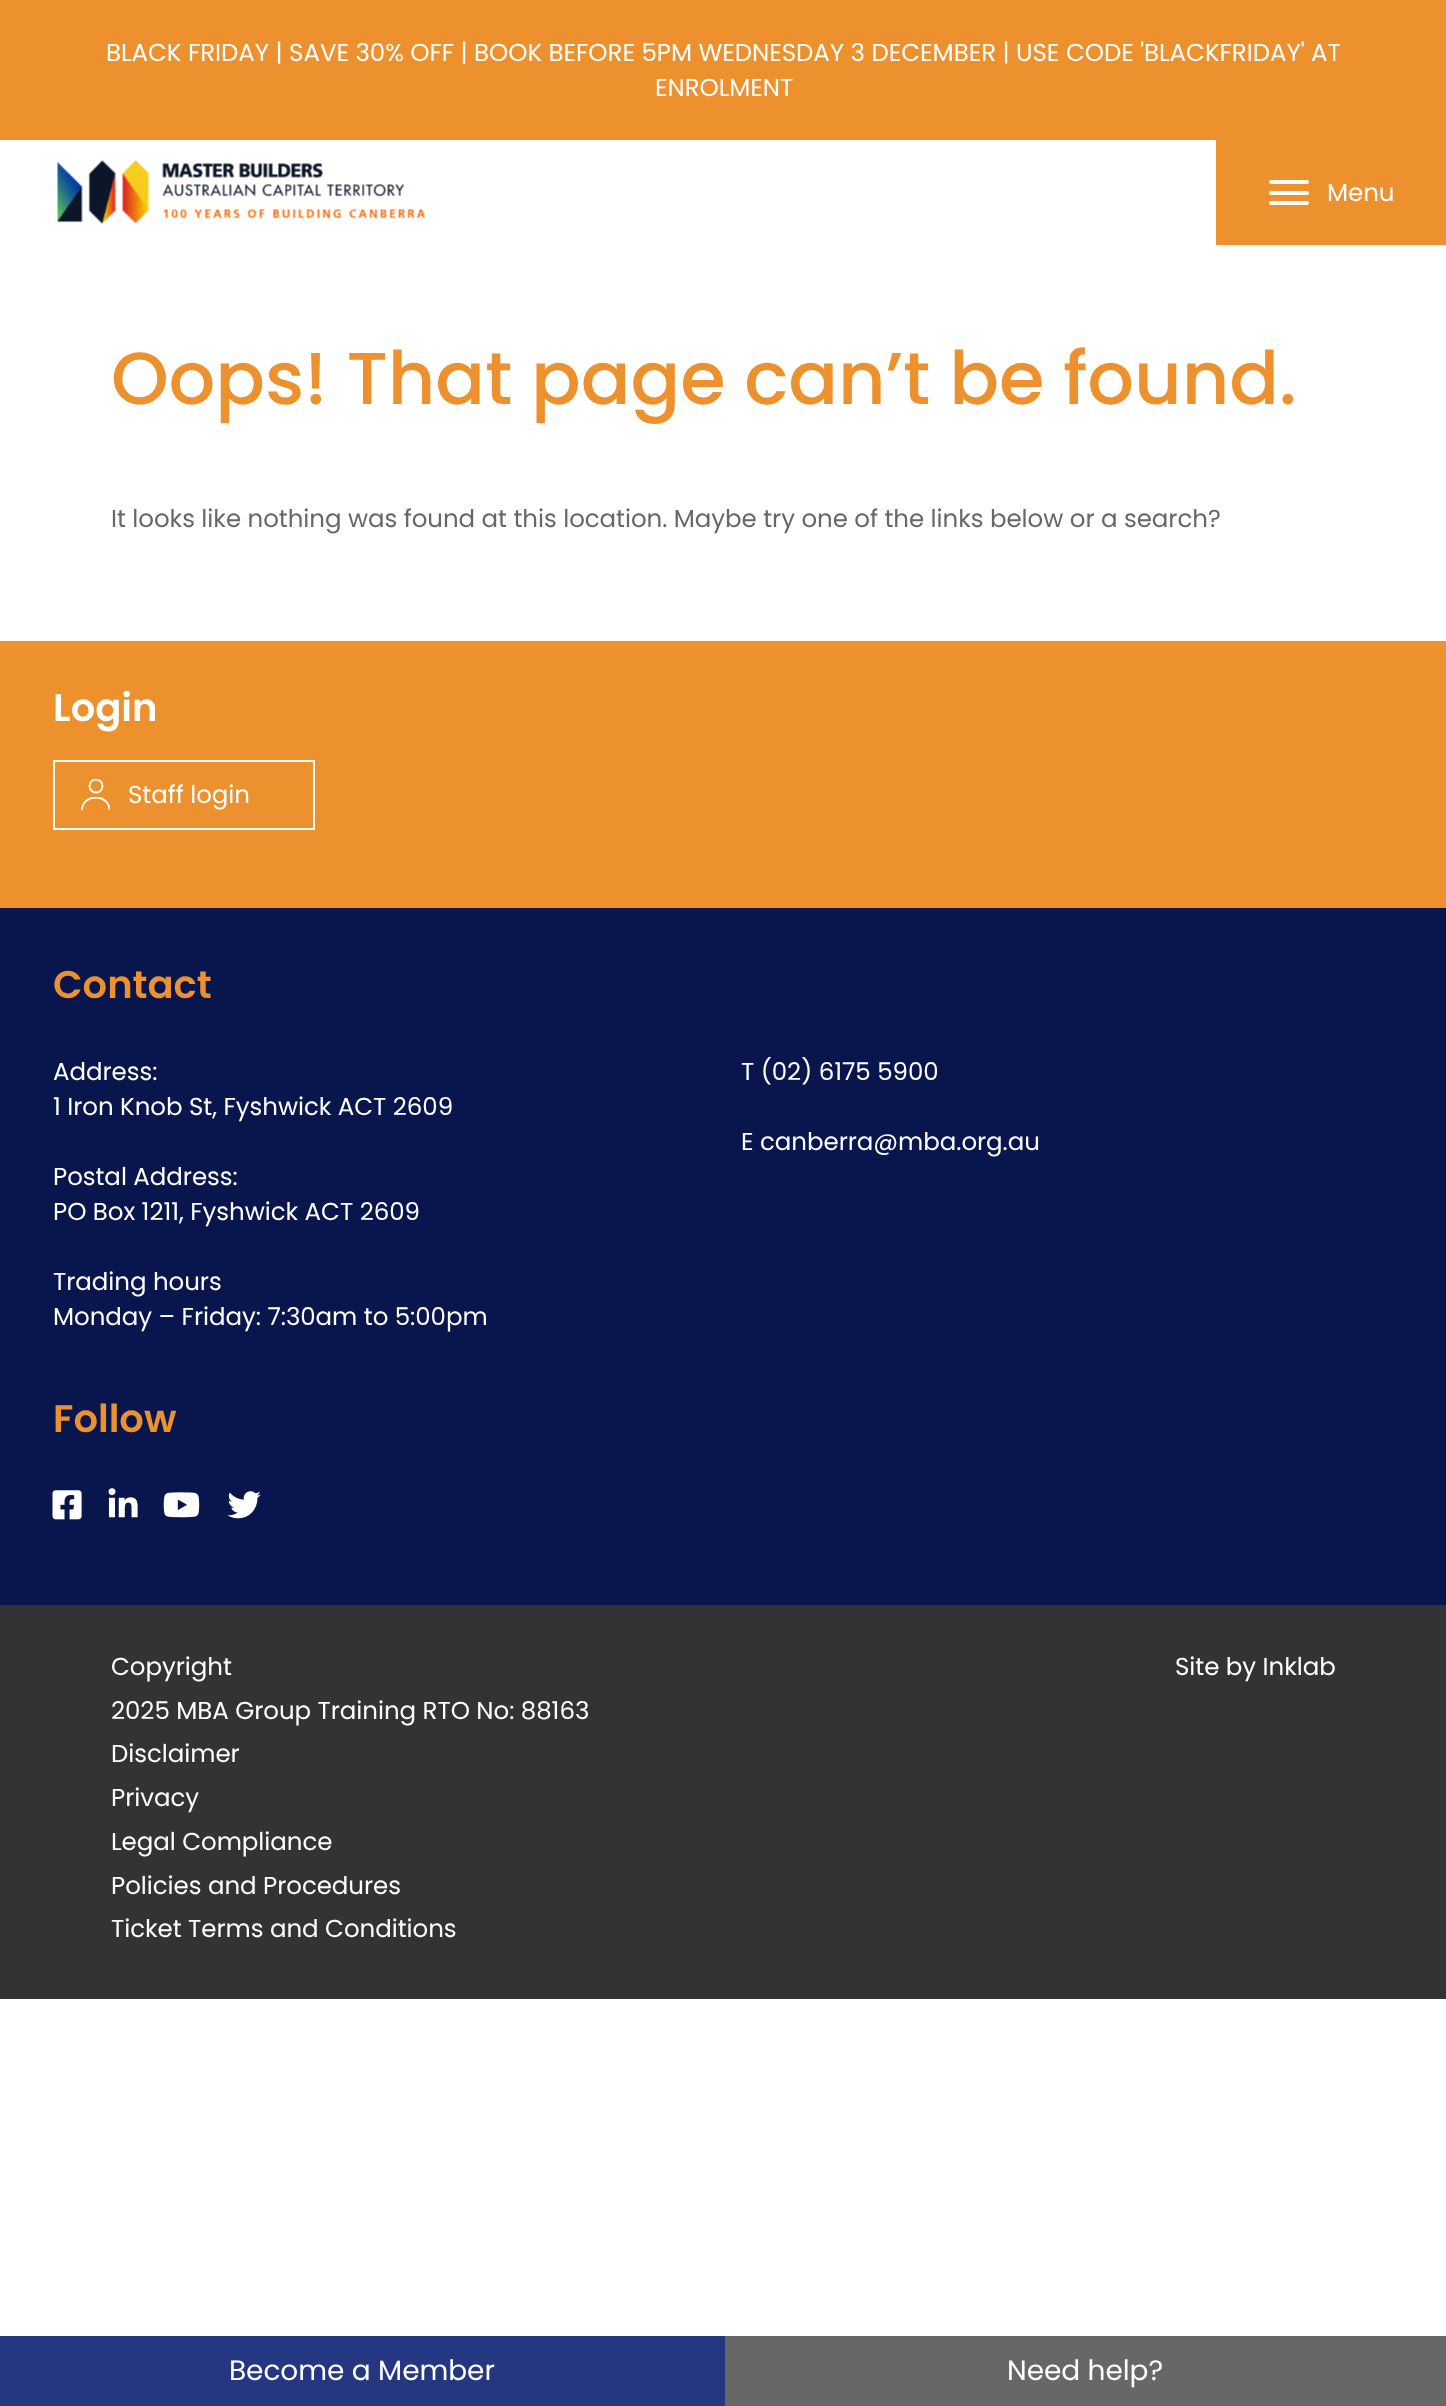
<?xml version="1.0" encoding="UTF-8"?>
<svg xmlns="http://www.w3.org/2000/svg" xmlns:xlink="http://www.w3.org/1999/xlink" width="1446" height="2406">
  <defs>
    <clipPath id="clip1"><rect x="81" y="779" width="29" height="31" /></clipPath>
  </defs>
  <rect width="100%" height="100%" fill="#ffffff" />
  <rect width="1446" height="140" fill="#ec912d" />
  <image x="57" y="160" width="369" height="64" xlink:href="image1.png" />
  <rect x="1216" y="140" width="230" height="105" fill="#ec912d" />
  <rect x="1269" y="180" width="40" height="4" rx="2" fill="#ffffff" />
  <rect x="1269" y="191" width="40" height="4" rx="2" fill="#ffffff" />
  <rect x="1269" y="201" width="40" height="4" rx="2" fill="#ffffff" />
  <rect y="641" width="1446" height="267" fill="#ec912d" />
  <rect x="54" y="761" width="260" height="68" fill="none" stroke="#ffffff" stroke-width="2" />
  <g clip-path="url(#clip1)">
    <path d="M 109.5 810 c 0 -16.5 -27.5 -16.5 -27.5 0" fill="none" stroke="#ffffff" stroke-width="1.8" />
    <circle cx="96" cy="786" r="6.5" fill="none" stroke="#ffffff" stroke-width="1.8" />
  </g>
  <rect y="908" width="1446" height="697" fill="#08164d" />
  <image x="52" y="1490" width="30" height="30" xlink:href="image2.png" />
  <image x="108" y="1488" width="30" height="30" xlink:href="image3.png" />
  <image x="163" y="1492" width="37" height="26" xlink:href="image4.png" />
  <image x="227" y="1491" width="34" height="28" xlink:href="image5.png" />
  <rect y="1605" width="1446" height="394" fill="#333333" />
  <rect y="2336" width="725" height="70" fill="#243780" />
  <rect x="725" y="2336" width="721" height="70" fill="#676767" />
  <text x="106" y="61" style="font-family: Poppins; font-size: 24.5px; letter-spacing: -0.05px; fill: #ffffff">BLACK FRIDAY | SAVE 30% OFF | BOOK BEFORE 5PM WEDNESDAY 3 DECEMBER | USE CODE 'BLACKFRIDAY' AT</text>
  <text x="655" y="96" style="font-family: Poppins; font-size: 24.5px; letter-spacing: -0.05px; fill: #ffffff">ENROLMENT</text>
  <text x="1327" y="201" style="font-family: Poppins; font-size: 24.5px; letter-spacing: -0.05px; fill: #ffffff">Menu</text>
  <text x="111" y="404" style="font-family: Poppins; font-size: 73.5px; font-weight: 500; letter-spacing: -0.15px; fill: #ec912d">Oops! That page can’t be found.</text>
  <text x="111" y="527" style="font-family: Poppins; font-size: 24.5px; letter-spacing: -0.05px; fill: #676767">It looks like nothing was found at this location. Maybe try one of the links below or a search?</text>
  <text x="53" y="721" style="font-family: Poppins; font-size: 38.5px; font-weight: 600; fill: #ffffff">Login</text>
  <text x="128" y="803" style="font-family: Poppins; font-size: 24.5px; letter-spacing: -0.05px; fill: #ffffff">Staff login</text>
  <text x="53" y="998" style="font-family: Poppins; font-size: 38.5px; font-weight: 600; fill: #ec912d">Contact</text>
  <text x="53" y="1080" style="font-family: Poppins; font-size: 24.5px; letter-spacing: -0.05px; fill: #ffffff">Address:</text>
  <text x="53" y="1115" style="font-family: Poppins; font-size: 24.5px; letter-spacing: -0.05px; fill: #ffffff">1 Iron Knob St, Fyshwick ACT 2609</text>
  <text x="53" y="1185" style="font-family: Poppins; font-size: 24.5px; letter-spacing: -0.05px; fill: #ffffff">Postal Address:</text>
  <text x="53" y="1220" style="font-family: Poppins; font-size: 24.5px; letter-spacing: -0.05px; fill: #ffffff">PO Box 1211, Fyshwick ACT 2609</text>
  <text x="53" y="1290" style="font-family: Poppins; font-size: 24.5px; letter-spacing: -0.05px; fill: #ffffff">Trading hours</text>
  <text x="53" y="1325" style="font-family: Poppins; font-size: 24.5px; letter-spacing: -0.05px; fill: #ffffff">Monday – Friday: 7:30am to 5:00pm</text>
  <text x="741" y="1080" style="font-family: Poppins; font-size: 24.5px; letter-spacing: -0.05px; fill: #ffffff">T (02) 6175 5900</text>
  <text x="741" y="1150" style="font-family: Poppins; font-size: 24.5px; letter-spacing: -0.05px; fill: #ffffff">E canberra@mba.org.au</text>
  <text x="53" y="1432" style="font-family: Poppins; font-size: 38.5px; font-weight: 600; fill: #ec912d">Follow</text>
  <text x="111" y="1675" style="font-family: Poppins; font-size: 24.5px; letter-spacing: -0.05px; fill: #ffffff">Copyright</text>
  <text x="111" y="1719" style="font-family: Poppins; font-size: 24.5px; letter-spacing: -0.05px; fill: #ffffff">2025 MBA Group Training RTO No: 88163</text>
  <text x="111" y="1762" style="font-family: Poppins; font-size: 24.5px; letter-spacing: -0.05px; fill: #ffffff">Disclaimer</text>
  <text x="111" y="1806" style="font-family: Poppins; font-size: 24.5px; letter-spacing: -0.05px; fill: #ffffff">Privacy</text>
  <text x="111" y="1850" style="font-family: Poppins; font-size: 24.5px; letter-spacing: -0.05px; fill: #ffffff">Legal Compliance</text>
  <text x="111" y="1894" style="font-family: Poppins; font-size: 24.5px; letter-spacing: -0.05px; fill: #ffffff">Policies and Procedures</text>
  <text x="111" y="1937" style="font-family: Poppins; font-size: 24.5px; letter-spacing: -0.05px; fill: #ffffff">Ticket Terms and Conditions</text>
  <text x="1175" y="1675" style="font-family: Poppins; font-size: 24.5px; letter-spacing: -0.05px; fill: #ffffff">Site by Inklab</text>
  <text x="229" y="2380" style="font-family: Poppins; font-size: 28px; letter-spacing: -0.05px; fill: #ffffff">Become a Member</text>
  <text x="1007" y="2380" style="font-family: Poppins; font-size: 28px; letter-spacing: -0.05px; fill: #ffffff">Need help?</text>
</svg>
